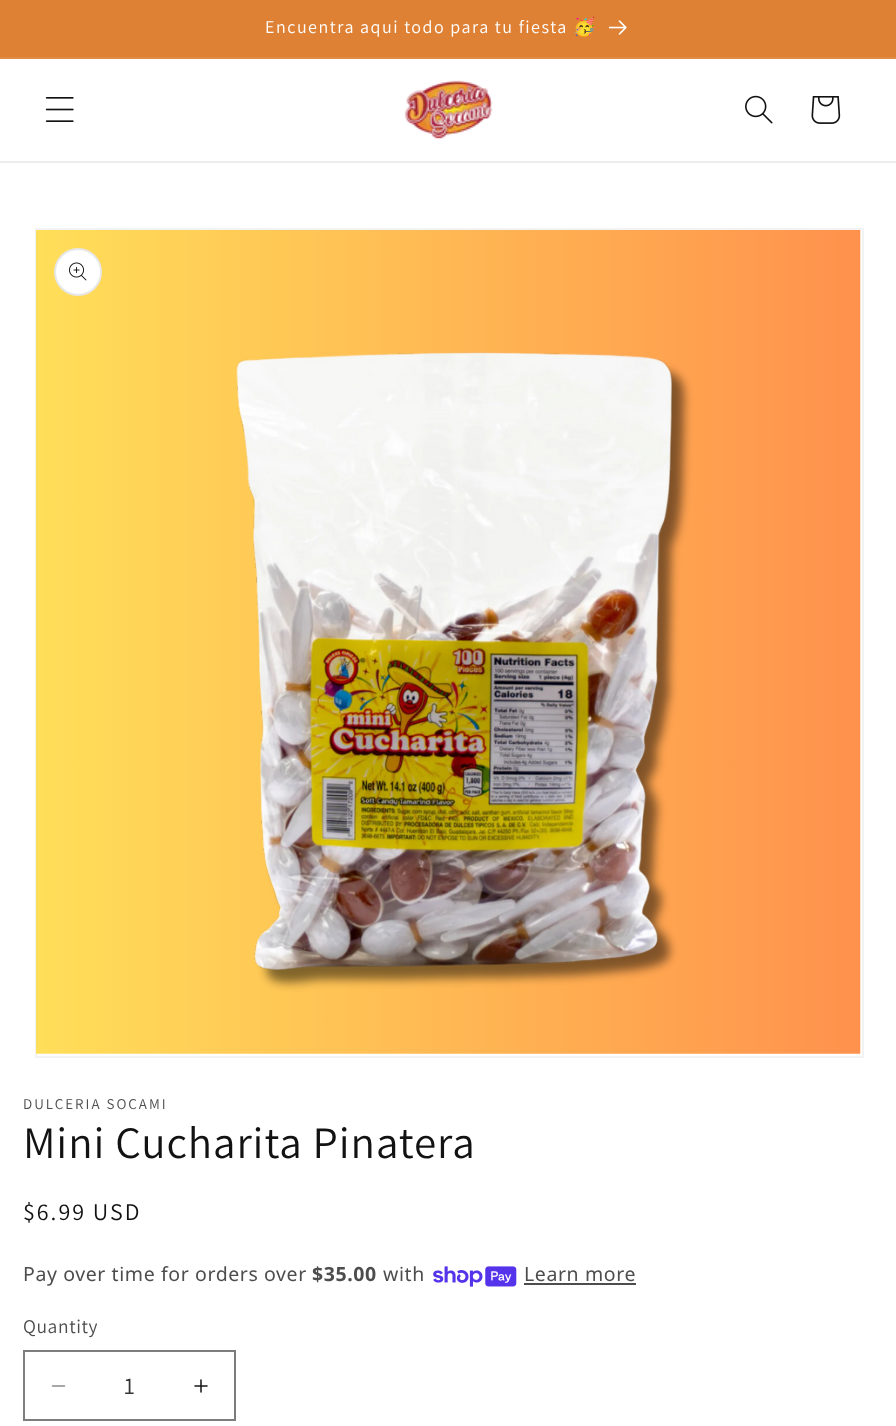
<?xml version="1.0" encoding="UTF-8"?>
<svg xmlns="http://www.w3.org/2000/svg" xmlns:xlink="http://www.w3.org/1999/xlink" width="896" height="1426">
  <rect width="100%" height="100%" fill="#ffffff" />
  <rect width="896" height="57" fill="#df8135" />
  <rect y="57" width="896" height="2" fill="#e28b45" />
  <image x="609" y="20" width="18" height="15" xlink:href="image1.png" />
  <rect y="161" width="896" height="2" fill="#ececec" />
  <image x="45" y="97" width="29" height="25" xlink:href="image2.png" />
  <image x="404" y="80" width="89" height="59" xlink:href="image3.png" />
  <image x="745" y="95" width="28" height="29" xlink:href="image4.png" />
  <image x="811" y="96" width="30" height="28" xlink:href="image5.png" />
  <rect x="36" y="229" width="827" height="828" fill="none" stroke="#f3f3f3" stroke-width="2" />
  <image x="36" y="230" width="825" height="824" xlink:href="image6.png" />
  <circle cx="78" cy="272" r="24" fill="#ffffff" />
  <circle cx="78" cy="272" r="23" fill="none" stroke="#121212" stroke-opacity="0.1" stroke-width="2" />
  <image x="69" y="262" width="18" height="19" xlink:href="image7.png" />
  <image x="433" y="1266" width="84" height="21" xlink:href="image8.png" />
  <rect x="524" y="1283" width="112" height="2" fill="#4d4d4d" />
  <image x="51" y="1385" width="15" height="2" xlink:href="image9.png" />
  <image x="194" y="1379" width="14" height="14" xlink:href="image10.png" />
  <rect x="24" y="1351" width="211" height="69" fill="none" stroke="#7d7d7d" stroke-width="2" />
  <text x="265" y="33" style="font-family: Assistant; font-size: 18px; letter-spacing: 1.5px; fill: #ffffff">Encuentra aqui todo para tu fiesta</text>
  <text x="573" y="33" style="font-family: Noto Color Emoji; font-size: 18px; letter-spacing: 1.5px; fill: #ffffff">🥳</text>
  <text x="23" y="1109" style="font-family: Assistant; font-size: 15px; letter-spacing: 2px; fill: #4d4d4d">DULCERIA SOCAMI</text>
  <text x="23" y="1158" style="font-family: Assistant; font-size: 45px; letter-spacing: 0.9px; fill: #121212">Mini Cucharita Pinatera</text>
  <text x="23" y="1220" style="font-family: Assistant; font-size: 24px; letter-spacing: 2px; fill: #121212">$6.99 USD</text>
  <text x="23" y="1281" style="font-family: Noto Sans; font-size: 19.5px; letter-spacing: 0.6px; fill: #4d4d4d">Pay over time for orders over</text>
  <text x="312" y="1281" style="font-family: Noto Sans; font-size: 19.5px; font-weight: bold; letter-spacing: 0.6px; fill: #4d4d4d">$35.00</text>
  <text x="383" y="1281" style="font-family: Noto Sans; font-size: 19.5px; letter-spacing: 0.6px; fill: #4d4d4d">with</text>
  <text x="524" y="1281" style="font-family: Noto Sans; font-size: 19.5px; letter-spacing: 0.6px; fill: #4d4d4d">Learn more</text>
  <text x="23" y="1333" style="font-family: Assistant; font-size: 19.5px; letter-spacing: 0.6px; fill: #4d4d4d">Quantity</text>
  <text x="124" y="1394" style="font-family: Assistant; font-size: 24px; fill: #363636">1</text>
</svg>
